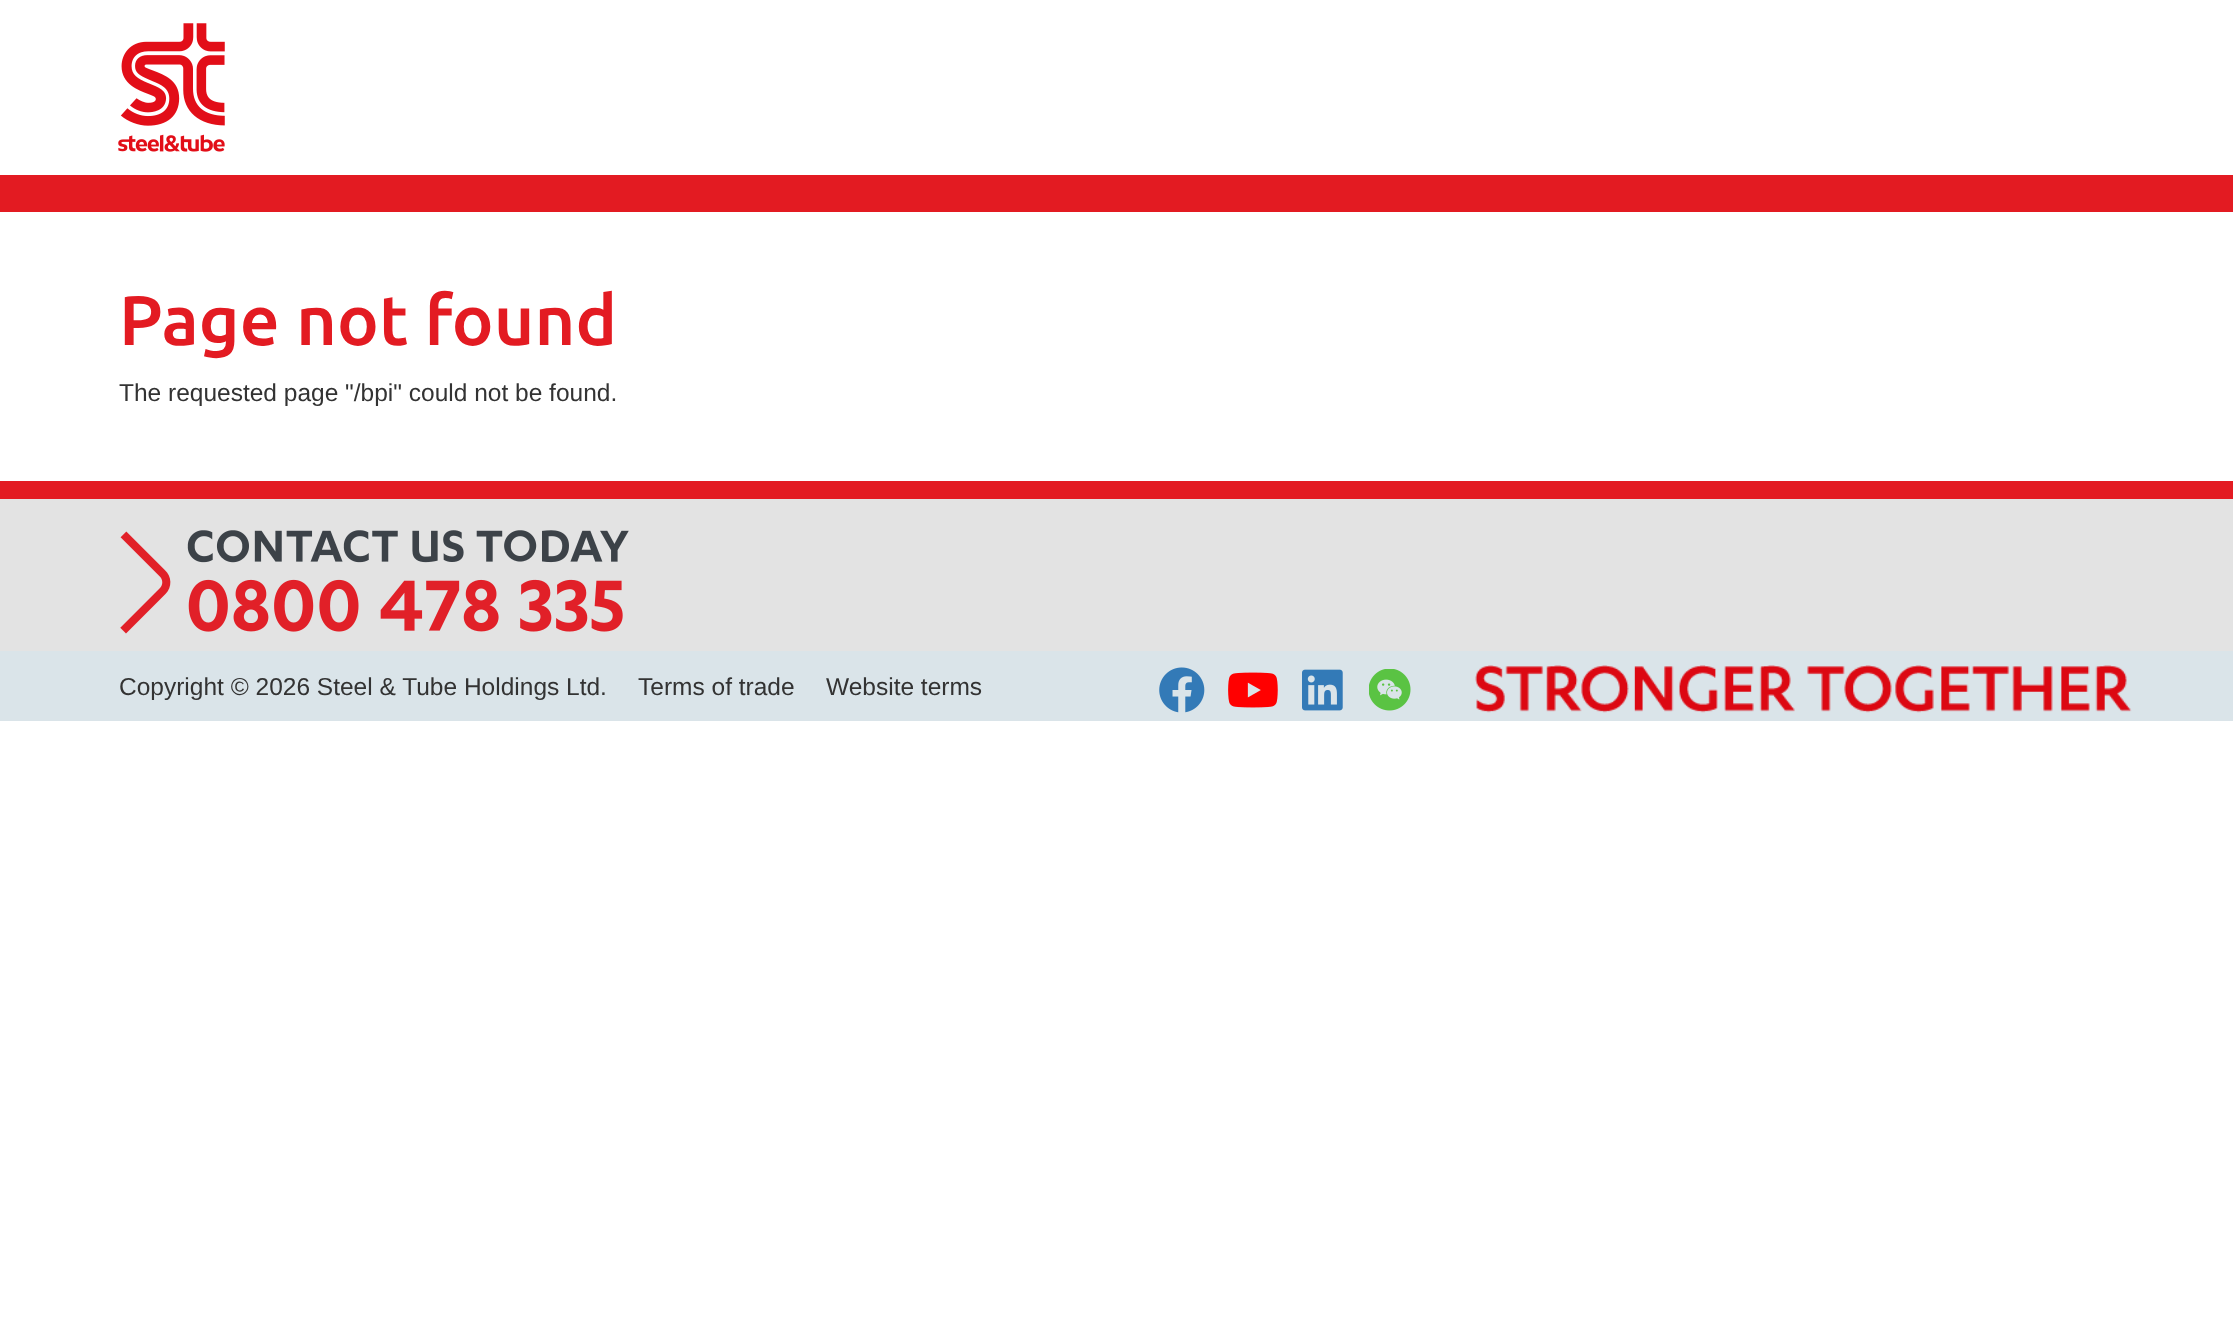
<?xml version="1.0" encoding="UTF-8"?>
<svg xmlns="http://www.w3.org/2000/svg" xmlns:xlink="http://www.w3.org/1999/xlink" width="2233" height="1333">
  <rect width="100%" height="100%" fill="#ffffff" />
  <image x="118" y="23" width="107" height="129" xlink:href="image1.png" />
  <rect y="175" width="2233" height="37" fill="#e31b22" />
  <rect y="481" width="2233" height="18" fill="#e31b22" />
  <rect y="499" width="2233" height="152" fill="#e3e3e3" />
  <image x="120" y="530" width="509" height="104" xlink:href="image2.png" />
  <rect y="651" width="2233" height="70" fill="#dae4e9" />
  <image x="1159" y="667" width="46" height="46" xlink:href="image3.png" />
  <image x="1228" y="672" width="50" height="36" xlink:href="image4.png" />
  <image x="1302" y="669" width="41" height="42" xlink:href="image5.png" />
  <image x="1369" y="669" width="42" height="42" xlink:href="image6.png" />
  <image x="1475" y="665" width="657" height="48" xlink:href="image7.png" />
  <text x="119" y="345" style="font-family: Ubuntu; font-size: 70px; font-weight: 500; fill: #e31b22">Page not found</text>
  <text x="119" y="401" style="font-family: Liberation Sans; font-size: 24.5px; fill: #333333">The requested page "/bpi" could not be found.</text>
  <text x="119" y="695" style="font-family: Liberation Sans; font-size: 24.5px; fill: #333333">Copyright © 2026 Steel &amp; Tube Holdings Ltd.</text>
  <text x="638" y="695" style="font-family: Liberation Sans; font-size: 24.5px; fill: #333333">Terms of trade</text>
  <text x="826" y="695" style="font-family: Liberation Sans; font-size: 24.5px; fill: #333333">Website terms</text>
</svg>
